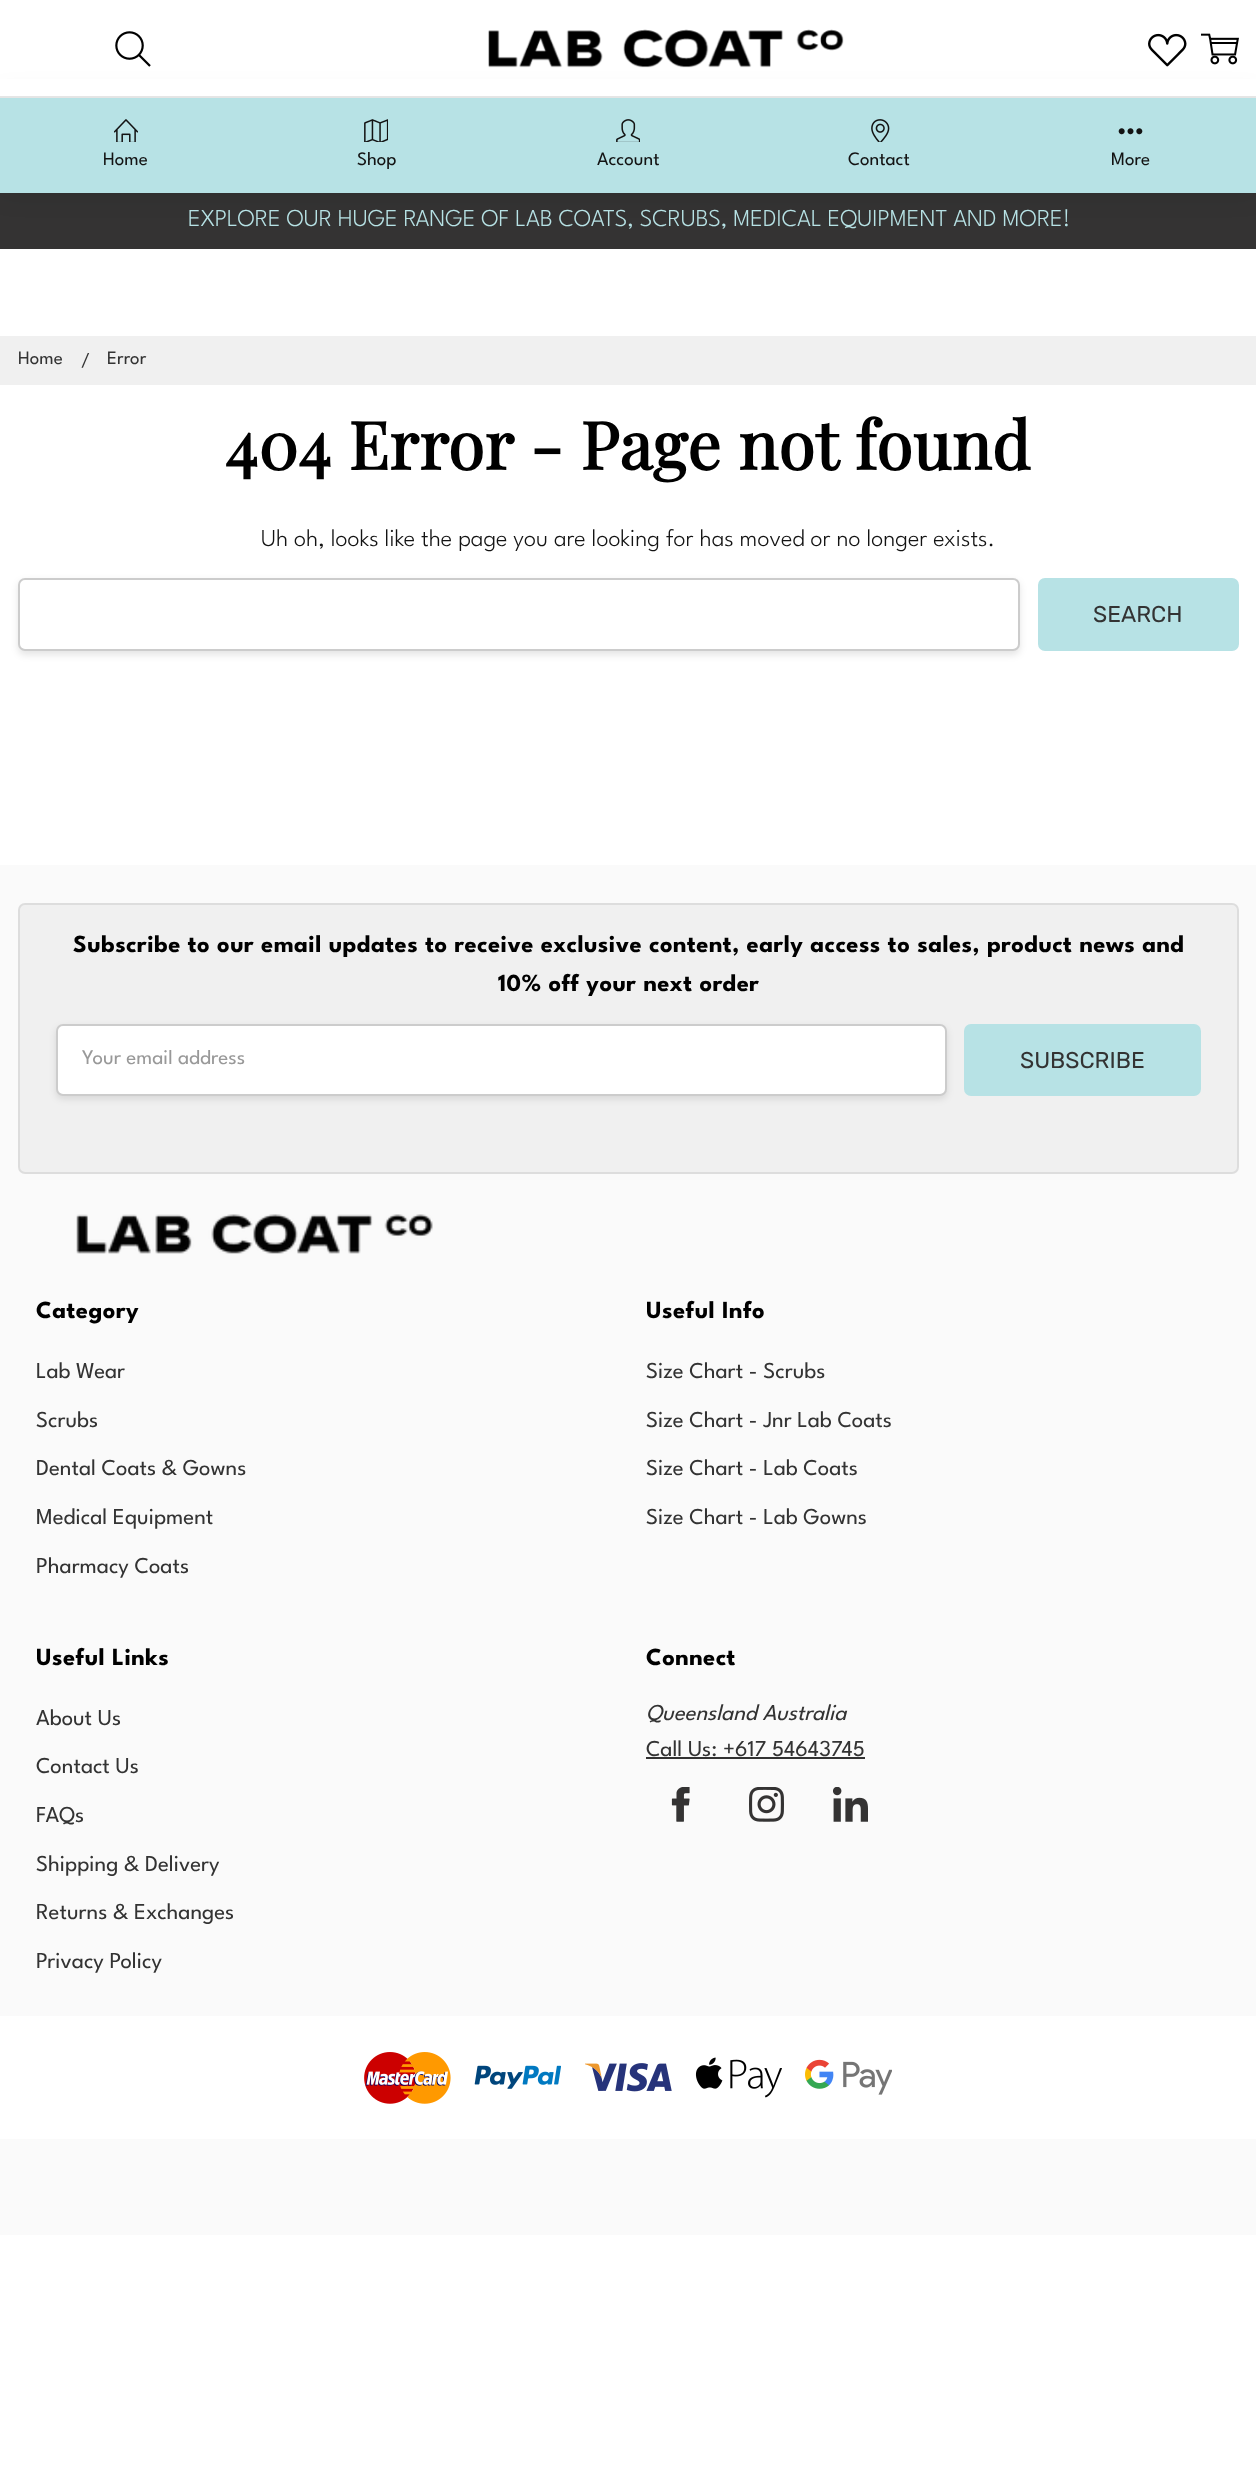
<?xml version="1.0" encoding="UTF-8"?>
<svg xmlns="http://www.w3.org/2000/svg" xmlns:xlink="http://www.w3.org/1999/xlink" width="1256" height="2473">
  <defs>
    <clipPath id="clip1"><rect x="82" y="1050" width="839" height="19" /></clipPath>
  </defs>
  <rect width="100%" height="100%" fill="#ffffff" />
  <rect y="193" width="1256" height="56" fill="#343333" />
  <rect y="96" width="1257" height="97" fill="#000000" fill-opacity="0.1" filter="blur(13px)" />
  <rect y="79" width="1256" height="17" fill="#ffffff" />
  <rect y="96" width="1256" height="2" fill="#e5e5e5" />
  <image x="488" y="29" width="356" height="39" xlink:href="image1.png" />
  <image x="115" y="31" width="36" height="36" xlink:href="image2.png" />
  <image x="1148" y="33" width="39" height="34" xlink:href="image3.png" />
  <image x="1201" y="33" width="38" height="32" xlink:href="image4.png" />
  <rect y="98" width="1256" height="95" fill="#b7e2e5" />
  <image x="114" y="119" width="24" height="23" xlink:href="image5.png" />
  <image x="364" y="119" width="24" height="23" xlink:href="image6.png" />
  <image x="616" y="119" width="24" height="23" xlink:href="image7.png" />
  <image x="871" y="119" width="19" height="23" xlink:href="image8.png" />
  <image x="1118" y="128" width="25" height="7" xlink:href="image9.png" />
  <rect y="336" width="1256" height="49" fill="#f0f0f0" />
  <rect x="18" y="581" width="1002" height="74" rx="7" fill="#000000" fill-opacity="0.1" filter="blur(3.5px)" />
  <rect x="19" y="579" width="1000" height="71" rx="6" fill="#ffffff" stroke="#cccccc" stroke-width="2" />
  <rect x="1039" y="579" width="199" height="71" rx="6" fill="#b7e2e5" stroke="#b7e2e5" stroke-width="2" />
  <rect y="865" width="1256" height="1370" fill="#fafafa" />
  <rect x="19" y="904" width="1219" height="269" rx="6" fill="#f0f0f0" stroke="#dddddd" stroke-width="2" />
  <rect x="56" y="1027" width="891" height="72" rx="7" fill="#000000" fill-opacity="0.1" filter="blur(3.5px)" />
  <rect x="57" y="1025" width="889" height="70" rx="6" fill="#ffffff" stroke="#cccccc" stroke-width="2" />
  <rect x="965" y="1025" width="235" height="70" rx="6" fill="#b7e2e5" stroke="#b7e2e5" stroke-width="2" />
  <image x="76" y="1214" width="357" height="40" xlink:href="image10.png" />
  <rect x="646" y="1757" width="219" height="2" fill="#323232" />
  <image x="671" y="1787" width="19" height="35" xlink:href="image11.png" />
  <image x="749" y="1787" width="35" height="35" xlink:href="image12.png" />
  <image x="833" y="1787" width="35" height="35" xlink:href="image13.png" />
  <rect y="2016" width="1256" height="123" fill="#ffffff" />
  <image x="364" y="2052" width="87" height="52" xlink:href="image14.png" />
  <image x="474" y="2065" width="87" height="24" xlink:href="image15.png" />
  <image x="585" y="2063" width="87" height="29" xlink:href="image16.png" />
  <image x="695" y="2057" width="87" height="41" xlink:href="image17.png" />
  <image x="805" y="2059" width="87" height="36" xlink:href="image18.png" />
  <text x="103" y="165" style="font-family: League Spartan; font-size: 19px; font-weight: 100; fill: #131313">Home</text>
  <text x="357" y="165" style="font-family: League Spartan; font-size: 19px; font-weight: 100; fill: #131313">Shop</text>
  <text x="597" y="165" style="font-family: League Spartan; font-size: 19px; font-weight: 100; fill: #131313">Account</text>
  <text x="848" y="165" style="font-family: League Spartan; font-size: 19px; font-weight: 100; fill: #131313">Contact</text>
  <text x="1111" y="165" style="font-family: League Spartan; font-size: 19px; font-weight: 100; fill: #131313">More</text>
  <text x="188" y="226" style="font-family: League Spartan; font-size: 24.35px; font-weight: 300; fill: #b7e2e5">EXPLORE OUR HUGE RANGE OF LAB COATS, SCRUBS, MEDICAL EQUIPMENT AND MORE!</text>
  <text x="18" y="364" style="font-family: League Spartan; font-size: 19px; font-weight: 100; fill: #333333">Home</text>
  <text x="81" y="366" style="font-family: League Spartan; font-size: 19px; font-weight: 100; fill: #333333">/</text>
  <text x="107" y="364" style="font-family: League Spartan; font-size: 19px; font-weight: 100; fill: #333333">Error</text>
  <text x="225" y="470" style="font-family: Playfair Display; font-size: 66.25px; font-weight: bold; letter-spacing: 0.44px; fill: #000000">404 Error - Page not found</text>
  <text x="261" y="546" style="font-family: League Spartan; font-size: 24.35px; font-weight: 300; fill: #131313">Uh oh, looks like the page you are looking for has moved or no longer exists.</text>
  <text x="1093" y="622" style="font-family: Rubik; font-size: 22.75px; font-weight: 300; fill: #333333">SEARCH</text>
  <text x="73" y="952" style="font-family: League Spartan; font-size: 24.5px; font-weight: bold; letter-spacing: 0.44px; fill: #000000">Subscribe to our email updates to receive exclusive content, early access to sales, product news and</text>
  <text x="498" y="991" style="font-family: League Spartan; font-size: 24.5px; font-weight: bold; letter-spacing: 0.44px; fill: #000000">10% off your next order</text>
  <g clip-path="url(#clip1)">
    <text x="82" y="1064" style="font-family: League Spartan; font-size: 21px; font-weight: 100; fill: #999999">Your email address</text>
  </g>
  <text x="1020" y="1068" style="font-family: Rubik; font-size: 22.75px; font-weight: 300; fill: #333333">SUBSCRIBE</text>
  <text x="36" y="1318" style="font-family: League Spartan; font-size: 24.5px; font-weight: bold; letter-spacing: 0.44px; fill: #000000">Category</text>
  <text x="36" y="1378" style="font-family: League Spartan; font-size: 22.75px; font-weight: 100; fill: #333333">Lab Wear</text>
  <text x="36" y="1427" style="font-family: League Spartan; font-size: 22.75px; font-weight: 100; fill: #333333">Scrubs</text>
  <text x="36" y="1475" style="font-family: League Spartan; font-size: 22.75px; font-weight: 100; fill: #333333">Dental Coats &amp; Gowns</text>
  <text x="36" y="1524" style="font-family: League Spartan; font-size: 22.75px; font-weight: 100; fill: #333333">Medical Equipment</text>
  <text x="36" y="1573" style="font-family: League Spartan; font-size: 22.75px; font-weight: 100; fill: #333333">Pharmacy Coats</text>
  <text x="646" y="1318" style="font-family: League Spartan; font-size: 24.5px; font-weight: bold; letter-spacing: 0.44px; fill: #000000">Useful Info</text>
  <text x="646" y="1378" style="font-family: League Spartan; font-size: 22.75px; font-weight: 100; fill: #333333">Size Chart - Scrubs</text>
  <text x="646" y="1427" style="font-family: League Spartan; font-size: 22.75px; font-weight: 100; fill: #333333">Size Chart - Jnr Lab Coats</text>
  <text x="646" y="1475" style="font-family: League Spartan; font-size: 22.75px; font-weight: 100; fill: #333333">Size Chart - Lab Coats</text>
  <text x="646" y="1524" style="font-family: League Spartan; font-size: 22.75px; font-weight: 100; fill: #333333">Size Chart - Lab Gowns</text>
  <text x="36" y="1665" style="font-family: League Spartan; font-size: 24.5px; font-weight: bold; letter-spacing: 0.44px; fill: #000000">Useful Links</text>
  <text x="36" y="1725" style="font-family: League Spartan; font-size: 22.75px; font-weight: 100; fill: #333333">About Us</text>
  <text x="36" y="1773" style="font-family: League Spartan; font-size: 22.75px; font-weight: 100; fill: #333333">Contact Us</text>
  <text x="36" y="1822" style="font-family: League Spartan; font-size: 22.75px; font-weight: 100; fill: #333333">FAQs</text>
  <text x="36" y="1871" style="font-family: League Spartan; font-size: 22.75px; font-weight: 100; fill: #333333">Shipping &amp; Delivery</text>
  <text x="36" y="1919" style="font-family: League Spartan; font-size: 22.75px; font-weight: 100; fill: #333333">Returns &amp; Exchanges</text>
  <text x="36" y="1968" style="font-family: League Spartan; font-size: 22.75px; font-weight: 100; fill: #333333">Privacy Policy</text>
  <text x="646" y="1665" style="font-family: League Spartan; font-size: 24.5px; font-weight: bold; letter-spacing: 0.44px; fill: #000000">Connect</text>
  <text x="646" y="1720" style="font-family: League Spartan; font-size: 22.75px; font-weight: 100; font-style: italic; fill: #333333">Queensland Australia</text>
  <text x="646" y="1756" style="font-family: League Spartan; font-size: 22.75px; font-weight: 100; fill: #333333">Call Us: +617 54643745</text>
</svg>
